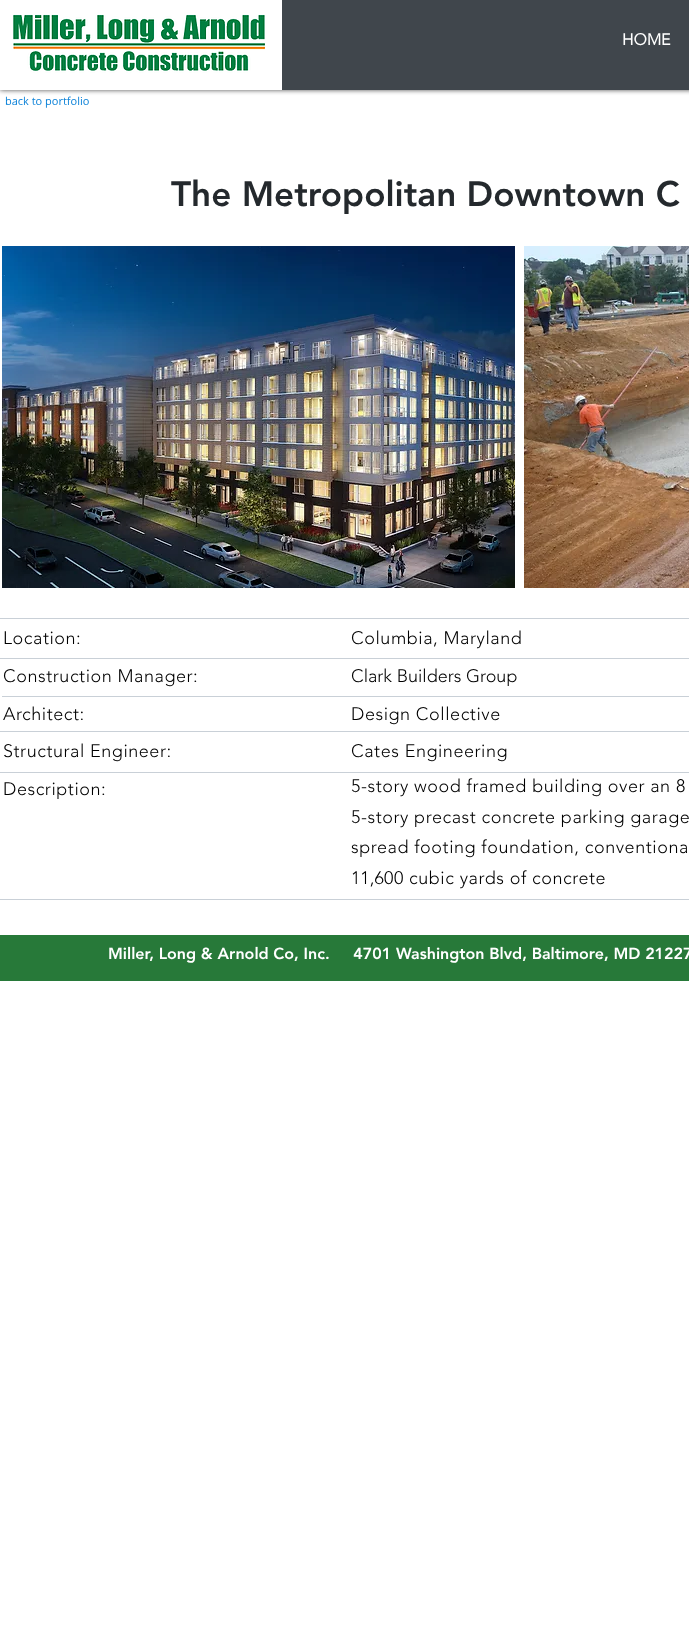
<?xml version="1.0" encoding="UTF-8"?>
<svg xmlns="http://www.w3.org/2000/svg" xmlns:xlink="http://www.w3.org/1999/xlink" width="689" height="1629">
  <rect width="100%" height="100%" fill="#ffffff" />
  <rect width="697" height="90" fill="#000000" fill-opacity="0.7" filter="blur(2.5px)" />
  <rect x="282" width="407" height="90" fill="#40464c" />
  <image x="0" y="0" width="282" height="90" xlink:href="image1.png" />
  <image x="2" y="246" width="513" height="342" xlink:href="image2.png" />
  <image x="524" y="246" width="165" height="342" xlink:href="image3.png" />
  <rect y="618" width="689" height="1" fill="#c9d0d7" />
  <rect y="658" width="689" height="1" fill="#c9d0d7" />
  <rect x="2" y="696" width="687" height="1" fill="#c9d0d7" />
  <rect y="731" width="689" height="1" fill="#c9d0d7" />
  <rect y="772" width="689" height="1" fill="#c9d0d7" />
  <rect y="899" width="689" height="1" fill="#c9d0d7" />
  <rect y="935" width="689" height="46" fill="#277939" />
  <text x="622" y="45" style="font-family: 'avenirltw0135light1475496'; font-size: 16px; font-weight: bold; fill: #ffffff">HOME</text>
  <text x="5" y="105" style="font-family: Open Sans; font-size: 11px; fill: #0a81d8">back to portfolio</text>
  <text x="171" y="206" style="font-family: 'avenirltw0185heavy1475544'; font-size: 35px; font-weight: 900; fill: #24292d">The Metropolitan Downtown C</text>
  <text x="3" y="644" style="font-family: 'avenirltw0135light1475496'; font-size: 18px; font-weight: 300; letter-spacing: 0.55px; fill: #000000">Location:</text>
  <text x="3" y="682" style="font-family: 'avenirltw0135light1475496'; font-size: 18px; font-weight: 300; letter-spacing: 0.55px; fill: #000000">Construction Manager:</text>
  <text x="3" y="720" style="font-family: 'avenirltw0135light1475496'; font-size: 18px; font-weight: 300; letter-spacing: 0.55px; fill: #000000">Architect:</text>
  <text x="3" y="757" style="font-family: 'avenirltw0135light1475496'; font-size: 18px; font-weight: 300; letter-spacing: 0.55px; fill: #000000">Structural Engineer:</text>
  <text x="3" y="795" style="font-family: 'avenirltw0135light1475496'; font-size: 18px; font-weight: 300; letter-spacing: 0.55px; fill: #000000">Description:</text>
  <text x="351" y="644" style="font-family: 'avenirltw0135light1475496'; font-size: 18px; font-weight: 300; letter-spacing: 0.55px; fill: #000000">Columbia, Maryland</text>
  <text x="351" y="682" style="font-family: 'avenirltw0135light1475496'; font-size: 18px; font-weight: 300; fill: #000000">Clark Builders Group</text>
  <text x="351" y="720" style="font-family: 'avenirltw0135light1475496'; font-size: 18px; font-weight: 300; letter-spacing: 0.55px; fill: #000000">Design Collective</text>
  <text x="351" y="757" style="font-family: 'avenirltw0135light1475496'; font-size: 18px; font-weight: 300; letter-spacing: 0.55px; fill: #000000">Cates Engineering</text>
  <text x="351" y="792" style="font-family: 'avenirltw0135light1475496'; font-size: 18px; font-weight: 300; letter-spacing: 0.55px; fill: #000000">5-story wood framed building over an 8</text>
  <text x="351" y="823" style="font-family: 'avenirltw0135light1475496'; font-size: 18px; font-weight: 300; letter-spacing: 0.55px; fill: #000000">5-story precast concrete parking garage</text>
  <text x="351" y="853" style="font-family: 'avenirltw0135light1475496'; font-size: 18px; font-weight: 300; letter-spacing: 0.55px; fill: #000000">spread footing foundation, conventiona</text>
  <text x="351" y="884" style="font-family: 'avenirltw0135light1475496'; font-size: 18px; font-weight: 300; fill: #000000">11,6</text>
  <text x="384" y="884" style="font-family: 'avenirltw0135light1475496'; font-size: 18px; font-weight: 300; letter-spacing: 0.55px; fill: #000000">00 cubic yards of concrete</text>
  <text x="108" y="959" style="font-family: 'avenirltw0185heavy1475544'; font-size: 16px; font-weight: 900; fill: #ffffff" xml:space="preserve">Miller, Long &amp; Arnold Co, Inc.     4701 Washington Blvd, Baltimore, MD 21227</text>
</svg>
